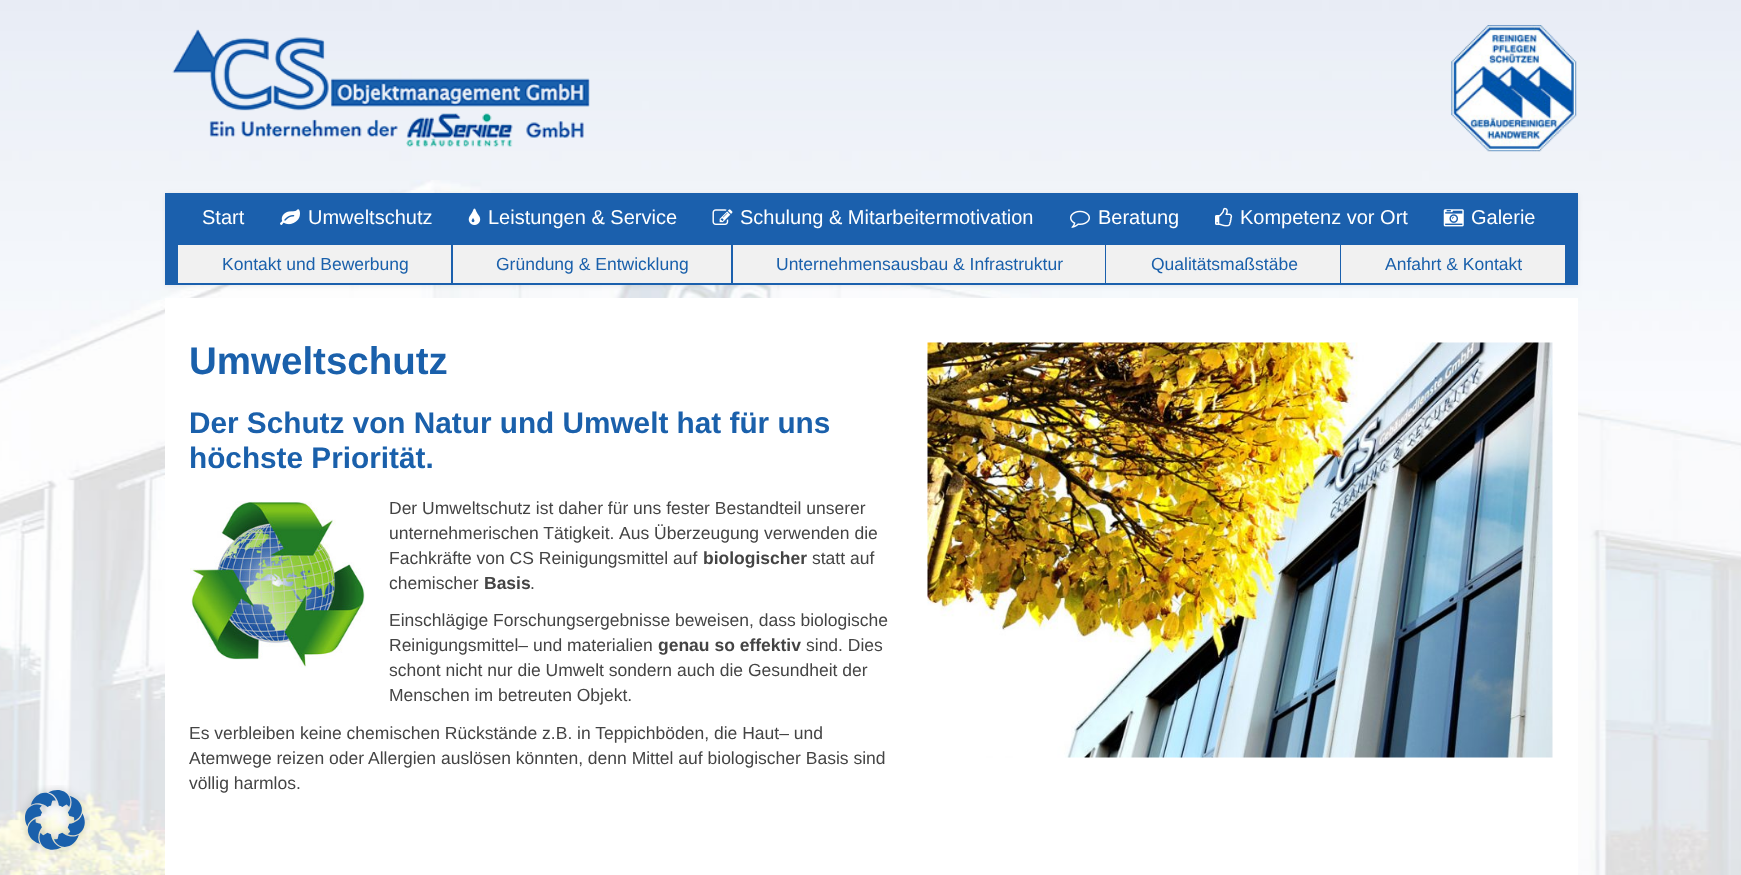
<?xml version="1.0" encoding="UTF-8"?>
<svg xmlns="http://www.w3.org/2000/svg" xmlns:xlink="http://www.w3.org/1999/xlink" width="1741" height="875">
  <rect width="100%" height="100%" fill="#ffffff" />
  <image x="0" y="0" width="1741" height="875" xlink:href="image1.png" />
  <image x="172" y="29" width="418" height="118" xlink:href="image2.png" />
  <image x="1451" y="25" width="126" height="127" xlink:href="image3.png" />
  <rect x="165" y="194" width="1413" height="92" rx="1" fill="#000000" fill-opacity="0.07" filter="blur(2.5px)" />
  <rect x="165" y="193" width="1413" height="92" fill="#1b60ad" />
  <image x="280" y="209" width="20" height="16" xlink:href="image4.png" />
  <image x="468" y="208" width="13" height="17" xlink:href="image5.png" />
  <image x="712" y="209" width="21" height="16" xlink:href="image6.png" />
  <image x="1070" y="210" width="20" height="18" xlink:href="image7.png" />
  <image x="1215" y="207" width="18" height="20" xlink:href="image8.png" />
  <image x="1443" y="209" width="21" height="18" xlink:href="image9.png" />
  <rect x="178" y="245" width="273" height="38" fill="#f1f1f1" />
  <rect x="453" y="245" width="278" height="38" fill="#f1f1f1" />
  <rect x="733" y="245" width="372" height="38" fill="#f1f1f1" />
  <rect x="1106" y="245" width="234" height="38" fill="#f1f1f1" />
  <rect x="1341" y="245" width="224" height="38" fill="#f1f1f1" />
  <rect x="165" y="298" width="1413" height="577" fill="#ffffff" />
  <image x="927" y="342" width="626" height="416" xlink:href="image10.png" />
  <image x="190" y="501" width="175" height="167" xlink:href="image11.png" />
  <image x="20" y="785" width="70" height="70" xlink:href="image12.png" />
  <text x="202" y="224" style="font-family: Liberation Sans; font-size: 20px; fill: #ffffff">Start</text>
  <text x="308" y="224" style="font-family: Liberation Sans; font-size: 20px; fill: #ffffff">Umweltschutz</text>
  <text x="488" y="224" style="font-family: Liberation Sans; font-size: 20px; fill: #ffffff">Leistungen &amp; Service</text>
  <text x="740" y="224" style="font-family: Liberation Sans; font-size: 20px; fill: #ffffff">Schulung &amp; Mitarbeitermotivation</text>
  <text x="1098" y="224" style="font-family: Liberation Sans; font-size: 20px; fill: #ffffff">Beratung</text>
  <text x="1240" y="224" style="font-family: Liberation Sans; font-size: 20px; fill: #ffffff">Kompetenz vor Ort</text>
  <text x="1471" y="224" style="font-family: Liberation Sans; font-size: 20px; fill: #ffffff">Galerie</text>
  <text x="222" y="270" style="font-family: Liberation Sans; font-size: 17.5px; fill: #1a60ab">Kontakt und Bewerbung</text>
  <text x="496" y="270" style="font-family: Liberation Sans; font-size: 17.5px; fill: #1a60ab">Gründung &amp; Entwicklung</text>
  <text x="776" y="270" style="font-family: Liberation Sans; font-size: 17.5px; fill: #1a60ab">Unternehmensausbau &amp; Infrastruktur</text>
  <text x="1151" y="270" style="font-family: Liberation Sans; font-size: 17.5px; fill: #1a60ab">Qualitätsmaßstäbe</text>
  <text x="1385" y="270" style="font-family: Liberation Sans; font-size: 17.5px; fill: #1a60ab">Anfahrt &amp; Kontakt</text>
  <text x="189" y="374" style="font-family: Liberation Sans; font-size: 38.5px; font-weight: bold; fill: #1a60ab">Umweltschutz</text>
  <text x="189" y="433" style="font-family: Liberation Sans; font-size: 29.75px; font-weight: bold; fill: #1a60ab">Der Schutz von Natur und Umwelt hat für uns</text>
  <text x="189" y="468" style="font-family: Liberation Sans; font-size: 29.75px; font-weight: bold; fill: #1a60ab">höchste Priorität.</text>
  <text x="389" y="514" style="font-family: Liberation Sans; font-size: 17.5px; fill: #444444">Der Umweltschutz ist daher für uns fester Bestandteil unserer</text>
  <text x="389" y="539" style="font-family: Liberation Sans; font-size: 17.5px; fill: #444444">unternehmerischen Tätigkeit.</text>
  <text x="619" y="539" style="font-family: Liberation Sans; font-size: 17.5px; fill: #444444">Aus Überzeugung verwenden die</text>
  <text x="389" y="564" style="font-family: Liberation Sans; font-size: 17.5px; fill: #444444">Fachkräfte von CS Reinigungsmittel auf</text>
  <text x="703" y="564" style="font-family: Liberation Sans; font-size: 17.5px; font-weight: bold; fill: #444444">biologischer</text>
  <text x="812" y="564" style="font-family: Liberation Sans; font-size: 17.5px; fill: #444444">statt auf</text>
  <text x="389" y="589" style="font-family: Liberation Sans; font-size: 17.5px; fill: #444444">chemischer</text>
  <text x="484" y="589" style="font-family: Liberation Sans; font-size: 17.5px; font-weight: bold; fill: #444444">Basis</text>
  <text x="530" y="589" style="font-family: Liberation Sans; font-size: 17.5px; fill: #444444">.</text>
  <text x="389" y="626" style="font-family: Liberation Sans; font-size: 17.5px; fill: #444444">Einschlägige Forschungsergebnisse beweisen, dass biologische</text>
  <text x="389" y="651" style="font-family: Liberation Sans; font-size: 17.5px; fill: #444444">Reinigungsmittel– und materialien</text>
  <text x="658" y="651" style="font-family: Liberation Sans; font-size: 17.5px; font-weight: bold; fill: #444444">genau so effektiv</text>
  <text x="806" y="651" style="font-family: Liberation Sans; font-size: 17.5px; fill: #444444">sind. Dies</text>
  <text x="389" y="676" style="font-family: Liberation Sans; font-size: 17.5px; fill: #444444">schont nicht nur die Umwelt sondern auch die Gesundheit der</text>
  <text x="389" y="701" style="font-family: Liberation Sans; font-size: 17.5px; fill: #444444">Menschen im betreuten Objekt.</text>
  <text x="189" y="739" style="font-family: Liberation Sans; font-size: 17.5px; fill: #444444">Es verbleiben keine chemischen Rückstände z.B. in Teppichböden, die Haut– und</text>
  <text x="189" y="764" style="font-family: Liberation Sans; font-size: 17.5px; fill: #444444">Atemwege reizen oder Allergien auslösen könnten, denn Mittel auf biologischer Basis sind</text>
  <text x="189" y="789" style="font-family: Liberation Sans; font-size: 17.5px; fill: #444444">völlig harmlos.</text>
</svg>
